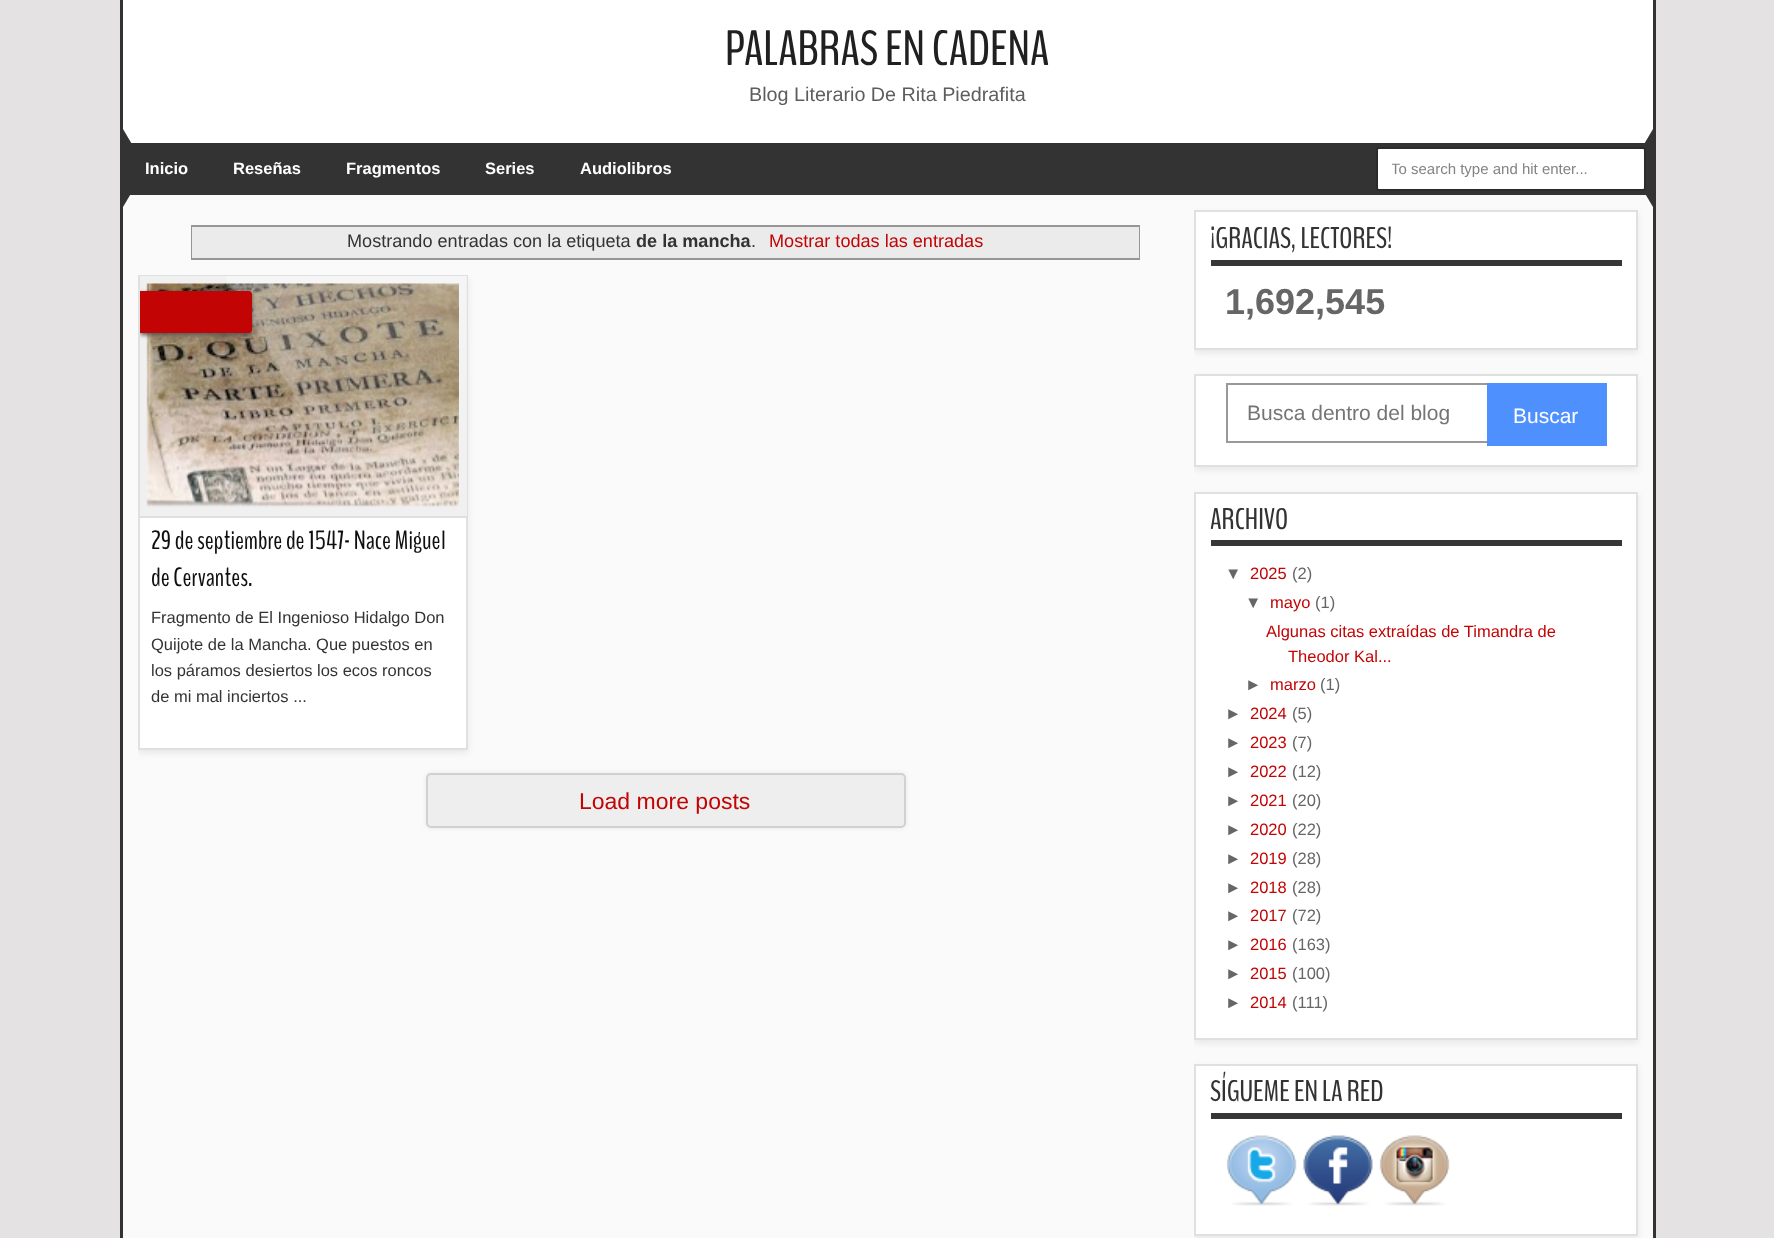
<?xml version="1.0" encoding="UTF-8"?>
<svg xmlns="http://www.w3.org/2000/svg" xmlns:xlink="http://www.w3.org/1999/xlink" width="1774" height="1238">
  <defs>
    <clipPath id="clip1"><rect x="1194" y="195" width="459" height="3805" /></clipPath>
    <clipPath id="clip2"><rect x="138" y="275" width="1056" height="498" /></clipPath>
    <clipPath id="clip3"><rect x="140" y="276" width="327" height="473" /></clipPath>
    <clipPath id="clip4"><rect x="1392" y="161" width="249" height="16" /></clipPath>
  </defs>
  <rect width="100%" height="100%" fill="#e4e2e2" />
  <rect x="123" y="195" width="1530" height="1043" fill="#fafafa" />
  <rect x="1653" width="3" height="1238" fill="#333333" />
  <rect x="120" width="3" height="1238" fill="#333333" />
  <rect x="123" width="1530" height="143" fill="#ffffff" />
  <rect x="130" y="143" width="1516" height="52" fill="#333333" />
  <path d="M 123 207 v -78 l 23 39 z" fill="#333333" />
  <g clip-path="url(#clip1)">
    <rect x="1194" y="213" width="444" height="140" fill="#e7e7e7" filter="blur(3px)" />
  </g>
  <path d="M 1653 129 v 78 l -23 -39 z" fill="#333333" />
  <rect x="1377" y="148" width="268" height="42" rx="2" fill="#ffffff" stroke="#2b2b2b" stroke-width="2" />
  <rect x="192" y="226" width="947" height="33" fill="none" stroke="#969696" stroke-width="2" />
  <rect x="192" y="227" width="947" height="31" fill="#ebebeb" />
  <g clip-path="url(#clip2)">
    <rect x="138" y="278" width="330" height="475" fill="#e7e7e7" filter="blur(3px)" />
  </g>
  <rect x="140" y="518" width="326" height="230" fill="#ffffff" />
  <rect x="139" y="276" width="328" height="473" fill="none" stroke="#e0e0e0" stroke-width="2" />
  <rect x="140" y="276" width="327" height="240" fill="#f0f0f0" />
  <rect x="140" y="516" width="327" height="2" fill="#dfdfdf" />
  <image x="146" y="283" width="313" height="224" xlink:href="image2.png" />
  <image x="226" y="276" width="240" height="229" xlink:href="image1.png" />
  <g clip-path="url(#clip3)">
    <rect x="140" y="293" width="112" height="42" rx="3" fill="#555454" filter="blur(2px)" />
  </g>
  <path d="M 140 291 h 109 c 1.5 0 3 1.5 3 3 v 36 c 0 1.5 -1.5 3 -3 3 h -109 z" fill="#c20404" />
  <rect x="426" y="773" width="480" height="55" rx="5" fill="#e7e7e7" filter="blur(2px)" />
  <rect x="427" y="774" width="478" height="53" rx="4" fill="#eeeeee" stroke="#d3d0d0" stroke-width="2" />
  <rect x="1195" y="211" width="442" height="138" fill="#ffffff" stroke="#e0e0e0" stroke-width="2" />
  <rect x="1211" y="260" width="411" height="6" fill="#363636" />
  <g clip-path="url(#clip1)">
    <rect x="1194" y="377" width="444" height="93" fill="#e7e7e7" filter="blur(3px)" />
  </g>
  <rect x="1195" y="375" width="442" height="91" fill="#ffffff" stroke="#e0e0e0" stroke-width="2" />
  <rect x="1227" y="384" width="379" height="58" fill="none" stroke="#999999" stroke-width="2" />
  <rect x="1487" y="383" width="120" height="63" fill="#4d90fe" />
  <g clip-path="url(#clip1)">
    <rect x="1194" y="495" width="444" height="548" fill="#e7e7e7" filter="blur(3px)" />
  </g>
  <rect x="1195" y="493" width="442" height="546" fill="#ffffff" stroke="#e0e0e0" stroke-width="2" />
  <rect x="1211" y="540" width="411" height="6" fill="#363636" />
  <g clip-path="url(#clip1)">
    <rect x="1194" y="1067" width="444" height="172" fill="#e7e7e7" filter="blur(3px)" />
  </g>
  <rect x="1195" y="1065" width="442" height="170" fill="#ffffff" stroke="#e0e0e0" stroke-width="2" />
  <rect x="1211" y="1113" width="411" height="6" fill="#363636" />
  <image x="1226" y="1135" width="71" height="71" xlink:href="image3.png" />
  <image x="1303" y="1135" width="70" height="71" xlink:href="image4.png" />
  <image x="1379" y="1135" width="71" height="71" xlink:href="image5.png" />
  <text x="725" y="65" style="font-family: BenchNine; font-size: 49.5px; fill: #202020">PALABRAS EN CADENA</text>
  <text x="749" y="101" style="font-family: Liberation Sans; font-size: 19.75px; fill: #5e5c5c">Blog Literario De Rita Piedrafita</text>
  <text x="145" y="174" style="font-family: Liberation Sans; font-size: 16.5px; font-weight: bold; fill: #ffffff">Inicio</text>
  <text x="233" y="174" style="font-family: Liberation Sans; font-size: 16.5px; font-weight: bold; fill: #ffffff">Reseñas</text>
  <text x="346" y="174" style="font-family: Liberation Sans; font-size: 16.5px; font-weight: bold; fill: #ffffff">Fragmentos</text>
  <text x="485" y="174" style="font-family: Liberation Sans; font-size: 16.5px; font-weight: bold; fill: #ffffff">Series</text>
  <text x="580" y="174" style="font-family: Liberation Sans; font-size: 16.5px; font-weight: bold; fill: #ffffff">Audiolibros</text>
  <g clip-path="url(#clip4)">
    <text x="1391" y="174" style="font-family: Liberation Sans; font-size: 15px; fill: #838383">To search type and hit enter...</text>
  </g>
  <text x="347" y="247" style="font-family: Liberation Sans; font-size: 18.1px; fill: #333333">Mostrando entradas con la etiqueta</text>
  <text x="636" y="247" style="font-family: Liberation Sans; font-size: 18.1px; font-weight: bold; fill: #333333">de la mancha</text>
  <text x="751" y="247" style="font-family: Liberation Sans; font-size: 18.1px; fill: #333333">.</text>
  <text x="769" y="247" style="font-family: Liberation Sans; font-size: 18.1px; fill: #c20404">Mostrar todas las entradas</text>
  <text x="151" y="549" style="font-family: BenchNine; font-size: 26.4px; fill: #0f0f0f">29 de septiembre de 1547- Nace Miguel</text>
  <text x="151" y="586" style="font-family: BenchNine; font-size: 26.4px; fill: #0f0f0f">de Cervantes.</text>
  <text x="151" y="623" style="font-family: Liberation Sans; font-size: 16.5px; fill: #333333">Fragmento de El Ingenioso Hidalgo Don</text>
  <text x="151" y="650" style="font-family: Liberation Sans; font-size: 16.5px; fill: #333333">Quijote de la Mancha. Que puestos en</text>
  <text x="151" y="676" style="font-family: Liberation Sans; font-size: 16.5px; fill: #333333">los páramos desiertos los ecos roncos</text>
  <text x="151" y="702" style="font-family: Liberation Sans; font-size: 16.5px; fill: #333333">de mi mal inciertos ...</text>
  <text x="579" y="809" style="font-family: Liberation Sans; font-size: 23px; fill: #c20404">Load more posts</text>
  <text x="1210" y="248" style="font-family: BenchNine; font-size: 29.75px; fill: #333333">¡GRACIAS, LECTORES!</text>
  <text x="1225" y="314" style="font-family: Liberation Sans; font-size: 36px; font-weight: bold; fill: #666666">1,692,545</text>
  <text x="1247" y="420" style="font-family: Liberation Sans; font-size: 21px; fill: #757575">Busca dentro del blog</text>
  <text x="1513" y="423" style="font-family: Liberation Sans; font-size: 21px; fill: #ffffff">Buscar</text>
  <text x="1210" y="529" style="font-family: BenchNine; font-size: 29.75px; fill: #333333">ARCHIVO</text>
  <text x="1225" y="579" style="font-family: Liberation Sans; font-size: 16.5px; fill: #666666">▼</text>
  <text x="1250" y="579" style="font-family: Liberation Sans; font-size: 16.5px; fill: #c20404">2025</text>
  <text x="1292" y="579" style="font-family: Liberation Sans; font-size: 16.5px; fill: #666666">(2)</text>
  <text x="1245" y="608" style="font-family: Liberation Sans; font-size: 16.5px; fill: #666666">▼</text>
  <text x="1270" y="608" style="font-family: Liberation Sans; font-size: 16.5px; fill: #c20404">mayo</text>
  <text x="1315" y="608" style="font-family: Liberation Sans; font-size: 16.5px; fill: #666666">(1)</text>
  <text x="1266" y="637" style="font-family: Liberation Sans; font-size: 16.5px; fill: #c20404">Algunas citas extraídas de Timandra de</text>
  <text x="1288" y="662" style="font-family: Liberation Sans; font-size: 16.5px; fill: #c20404">Theodor Kal...</text>
  <text x="1245" y="690" style="font-family: Liberation Sans; font-size: 16.5px; fill: #666666">►</text>
  <text x="1270" y="690" style="font-family: Liberation Sans; font-size: 16.5px; fill: #c20404">marzo</text>
  <text x="1320" y="690" style="font-family: Liberation Sans; font-size: 16.5px; fill: #666666">(1)</text>
  <text x="1225" y="719" style="font-family: Liberation Sans; font-size: 16.5px; fill: #666666">►</text>
  <text x="1250" y="719" style="font-family: Liberation Sans; font-size: 16.5px; fill: #c20404">2024</text>
  <text x="1292" y="719" style="font-family: Liberation Sans; font-size: 16.5px; fill: #666666">(5)</text>
  <text x="1225" y="748" style="font-family: Liberation Sans; font-size: 16.5px; fill: #666666">►</text>
  <text x="1250" y="748" style="font-family: Liberation Sans; font-size: 16.5px; fill: #c20404">2023</text>
  <text x="1292" y="748" style="font-family: Liberation Sans; font-size: 16.5px; fill: #666666">(7)</text>
  <text x="1225" y="777" style="font-family: Liberation Sans; font-size: 16.5px; fill: #666666">►</text>
  <text x="1250" y="777" style="font-family: Liberation Sans; font-size: 16.5px; fill: #c20404">2022</text>
  <text x="1292" y="777" style="font-family: Liberation Sans; font-size: 16.5px; fill: #666666">(12)</text>
  <text x="1225" y="806" style="font-family: Liberation Sans; font-size: 16.5px; fill: #666666">►</text>
  <text x="1250" y="806" style="font-family: Liberation Sans; font-size: 16.5px; fill: #c20404">2021</text>
  <text x="1292" y="806" style="font-family: Liberation Sans; font-size: 16.5px; fill: #666666">(20)</text>
  <text x="1225" y="835" style="font-family: Liberation Sans; font-size: 16.5px; fill: #666666">►</text>
  <text x="1250" y="835" style="font-family: Liberation Sans; font-size: 16.5px; fill: #c20404">2020</text>
  <text x="1292" y="835" style="font-family: Liberation Sans; font-size: 16.5px; fill: #666666">(22)</text>
  <text x="1225" y="864" style="font-family: Liberation Sans; font-size: 16.5px; fill: #666666">►</text>
  <text x="1250" y="864" style="font-family: Liberation Sans; font-size: 16.5px; fill: #c20404">2019</text>
  <text x="1292" y="864" style="font-family: Liberation Sans; font-size: 16.5px; fill: #666666">(28)</text>
  <text x="1225" y="893" style="font-family: Liberation Sans; font-size: 16.5px; fill: #666666">►</text>
  <text x="1250" y="893" style="font-family: Liberation Sans; font-size: 16.5px; fill: #c20404">2018</text>
  <text x="1292" y="893" style="font-family: Liberation Sans; font-size: 16.5px; fill: #666666">(28)</text>
  <text x="1225" y="921" style="font-family: Liberation Sans; font-size: 16.5px; fill: #666666">►</text>
  <text x="1250" y="921" style="font-family: Liberation Sans; font-size: 16.5px; fill: #c20404">2017</text>
  <text x="1292" y="921" style="font-family: Liberation Sans; font-size: 16.5px; fill: #666666">(72)</text>
  <text x="1225" y="950" style="font-family: Liberation Sans; font-size: 16.5px; fill: #666666">►</text>
  <text x="1250" y="950" style="font-family: Liberation Sans; font-size: 16.5px; fill: #c20404">2016</text>
  <text x="1292" y="950" style="font-family: Liberation Sans; font-size: 16.5px; fill: #666666">(163)</text>
  <text x="1225" y="979" style="font-family: Liberation Sans; font-size: 16.5px; fill: #666666">►</text>
  <text x="1250" y="979" style="font-family: Liberation Sans; font-size: 16.5px; fill: #c20404">2015</text>
  <text x="1292" y="979" style="font-family: Liberation Sans; font-size: 16.5px; fill: #666666">(100)</text>
  <text x="1225" y="1008" style="font-family: Liberation Sans; font-size: 16.5px; fill: #666666">►</text>
  <text x="1250" y="1008" style="font-family: Liberation Sans; font-size: 16.5px; fill: #c20404">2014</text>
  <text x="1292" y="1008" style="font-family: Liberation Sans; font-size: 16.5px; fill: #666666">(111)</text>
  <text x="1210" y="1101" style="font-family: BenchNine; font-size: 29.75px; fill: #333333">SÍGUEME EN LA RED</text>
</svg>
